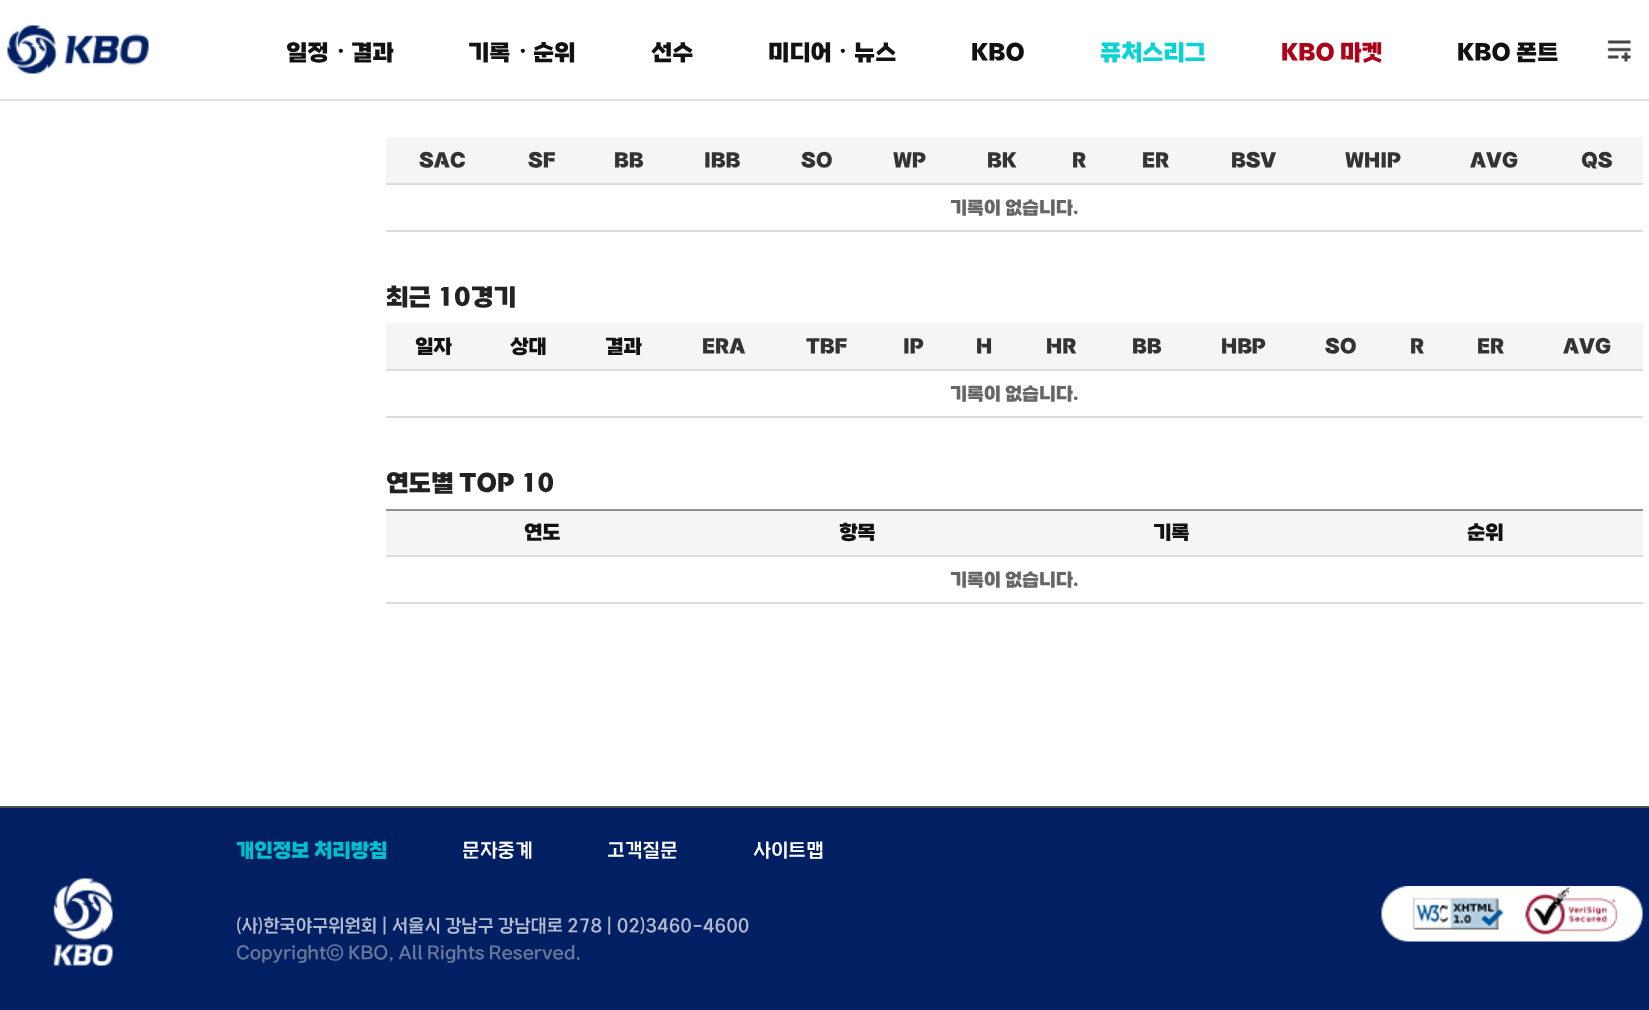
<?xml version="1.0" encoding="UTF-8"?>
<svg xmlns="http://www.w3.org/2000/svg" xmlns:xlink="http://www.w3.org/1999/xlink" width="1649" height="1010">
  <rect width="100%" height="100%" fill="#ffffff" />
  <rect y="99" width="1649" height="2" fill="#e1e1e1" />
  <image x="7" y="25" width="142" height="49" xlink:href="image1.png" />
  <image x="1607" y="40" width="24" height="22" xlink:href="image2.png" />
  <rect x="386" y="137" width="1257" height="46" fill="#f5f5f5" />
  <rect x="386" y="183" width="1257" height="2" fill="#dcdcdc" />
  <rect x="386" y="230" width="1257" height="2" fill="#dcdcdc" />
  <rect x="386" y="323" width="1257" height="46" fill="#f5f5f5" />
  <rect x="386" y="369" width="1257" height="2" fill="#dcdcdc" />
  <rect x="386" y="416" width="1257" height="2" fill="#dcdcdc" />
  <rect x="386" y="509" width="1257" height="2" fill="#929292" />
  <rect x="386" y="511" width="1257" height="44" fill="#f5f5f5" />
  <rect x="386" y="555" width="1257" height="2" fill="#dcdcdc" />
  <rect x="386" y="602" width="1257" height="2" fill="#dcdcdc" />
  <rect y="808" width="1649" height="202" fill="#002063" />
  <rect y="806" width="1649" height="2" fill="#4e4e4e" />
  <image x="53" y="878" width="60" height="88" xlink:href="image3.png" />
  <image x="1381" y="886" width="262" height="56" xlink:href="image4.png" />
  <text x="286" y="59" style="font-family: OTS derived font; font-size: 22.5px; font-weight: bold; fill: #121212">일정</text>
  <text x="329" y="59" style="font-family: WenQuanYi Zen Hei; font-size: 22.5px; font-weight: bold; fill: #121212">・</text>
  <text x="351" y="59" style="font-family: OTS derived font; font-size: 22.5px; font-weight: bold; fill: #121212">결과</text>
  <text x="468" y="59" style="font-family: OTS derived font; font-size: 22.5px; font-weight: bold; fill: #121212">기록</text>
  <text x="511" y="59" style="font-family: WenQuanYi Zen Hei; font-size: 22.5px; font-weight: bold; fill: #121212">・</text>
  <text x="533" y="59" style="font-family: OTS derived font; font-size: 22.5px; font-weight: bold; fill: #121212">순위</text>
  <text x="651" y="59" style="font-family: OTS derived font; font-size: 22.5px; font-weight: bold; fill: #121212">선수</text>
  <text x="768" y="59" style="font-family: OTS derived font; font-size: 22.5px; font-weight: bold; fill: #121212">미디어</text>
  <text x="831" y="59" style="font-family: WenQuanYi Zen Hei; font-size: 22.5px; font-weight: bold; fill: #121212">・</text>
  <text x="854" y="59" style="font-family: OTS derived font; font-size: 22.5px; font-weight: bold; fill: #121212">뉴스</text>
  <text x="971" y="59" style="font-family: OTS derived font; font-size: 22.5px; font-weight: bold; fill: #121212">KBO</text>
  <text x="1100" y="59" style="font-family: OTS derived font; font-size: 22.5px; font-weight: bold; fill: #09d3d3">퓨처스리그</text>
  <text x="1281" y="59" style="font-family: OTS derived font; font-size: 22.5px; font-weight: bold; fill: #ab0419">KBO 마켓</text>
  <text x="1457" y="59" style="font-family: OTS derived font; font-size: 22.5px; font-weight: bold; fill: #121212">KBO 폰트</text>
  <text x="419" y="166" style="font-family: OTS derived font; font-size: 19.5px; font-weight: bold; fill: #333333">SAC</text>
  <text x="528" y="166" style="font-family: OTS derived font; font-size: 19.5px; font-weight: bold; fill: #333333">SF</text>
  <text x="614" y="166" style="font-family: OTS derived font; font-size: 19.5px; font-weight: bold; fill: #333333">BB</text>
  <text x="704" y="166" style="font-family: OTS derived font; font-size: 19.5px; font-weight: bold; fill: #333333">IBB</text>
  <text x="801" y="166" style="font-family: OTS derived font; font-size: 19.5px; font-weight: bold; fill: #333333">SO</text>
  <text x="893" y="166" style="font-family: OTS derived font; font-size: 19.5px; font-weight: bold; fill: #333333">WP</text>
  <text x="987" y="166" style="font-family: OTS derived font; font-size: 19.5px; font-weight: bold; fill: #333333">BK</text>
  <text x="1072" y="166" style="font-family: OTS derived font; font-size: 19.5px; font-weight: bold; fill: #333333">R</text>
  <text x="1142" y="166" style="font-family: OTS derived font; font-size: 19.5px; font-weight: bold; fill: #333333">ER</text>
  <text x="1231" y="166" style="font-family: OTS derived font; font-size: 19.5px; font-weight: bold; fill: #333333">BSV</text>
  <text x="1345" y="166" style="font-family: OTS derived font; font-size: 19.5px; font-weight: bold; fill: #333333">WHIP</text>
  <text x="1470" y="166" style="font-family: OTS derived font; font-size: 19.5px; font-weight: bold; fill: #333333">AVG</text>
  <text x="1581" y="166" style="font-family: OTS derived font; font-size: 19.5px; font-weight: bold; fill: #333333">QS</text>
  <text x="950" y="213" style="font-family: OTS derived font; font-size: 18px; font-weight: bold; fill: #666666">기록이 없습니다.</text>
  <text x="386" y="304" style="font-family: OTS derived font; font-size: 24px; font-weight: bold; fill: #222222">최근 10경기</text>
  <text x="415" y="352" style="font-family: OTS derived font; font-size: 19.5px; font-weight: bold; fill: #121212">일자</text>
  <text x="510" y="352" style="font-family: OTS derived font; font-size: 19.5px; font-weight: bold; fill: #121212">상대</text>
  <text x="605" y="352" style="font-family: OTS derived font; font-size: 19.5px; font-weight: bold; fill: #121212">결과</text>
  <text x="702" y="352" style="font-family: OTS derived font; font-size: 19.5px; font-weight: bold; fill: #333333">ERA</text>
  <text x="806" y="352" style="font-family: OTS derived font; font-size: 19.5px; font-weight: bold; fill: #333333">TBF</text>
  <text x="903" y="352" style="font-family: OTS derived font; font-size: 19.5px; font-weight: bold; fill: #333333">IP</text>
  <text x="976" y="352" style="font-family: OTS derived font; font-size: 19.5px; font-weight: bold; fill: #333333">H</text>
  <text x="1046" y="352" style="font-family: OTS derived font; font-size: 19.5px; font-weight: bold; fill: #333333">HR</text>
  <text x="1132" y="352" style="font-family: OTS derived font; font-size: 19.5px; font-weight: bold; fill: #333333">BB</text>
  <text x="1221" y="352" style="font-family: OTS derived font; font-size: 19.5px; font-weight: bold; fill: #333333">HBP</text>
  <text x="1325" y="352" style="font-family: OTS derived font; font-size: 19.5px; font-weight: bold; fill: #333333">SO</text>
  <text x="1410" y="352" style="font-family: OTS derived font; font-size: 19.5px; font-weight: bold; fill: #333333">R</text>
  <text x="1477" y="352" style="font-family: OTS derived font; font-size: 19.5px; font-weight: bold; fill: #333333">ER</text>
  <text x="1563" y="352" style="font-family: OTS derived font; font-size: 19.5px; font-weight: bold; fill: #333333">AVG</text>
  <text x="950" y="399" style="font-family: OTS derived font; font-size: 18px; font-weight: bold; fill: #666666">기록이 없습니다.</text>
  <text x="386" y="490" style="font-family: OTS derived font; font-size: 24px; font-weight: bold; fill: #222222">연도별 TOP 10</text>
  <text x="524" y="538" style="font-family: OTS derived font; font-size: 19.5px; font-weight: bold; fill: #121212">연도</text>
  <text x="839" y="538" style="font-family: OTS derived font; font-size: 19.5px; font-weight: bold; fill: #121212">항목</text>
  <text x="1153" y="538" style="font-family: OTS derived font; font-size: 19.5px; font-weight: bold; fill: #121212">기록</text>
  <text x="1467" y="538" style="font-family: OTS derived font; font-size: 19.5px; font-weight: bold; fill: #121212">순위</text>
  <text x="950" y="585" style="font-family: OTS derived font; font-size: 18px; font-weight: bold; fill: #666666">기록이 없습니다.</text>
  <text x="236" y="856" style="font-family: OTS derived font; font-size: 19.5px; font-weight: bold; fill: #00bece">개인정보 처리방침</text>
  <text x="462" y="856" style="font-family: OTS derived font; font-size: 19.5px; font-weight: 500; fill: #ffffff">문자중계</text>
  <text x="607" y="856" style="font-family: OTS derived font; font-size: 19.5px; font-weight: 500; fill: #ffffff">고객질문</text>
  <text x="753" y="856" style="font-family: OTS derived font; font-size: 19.5px; font-weight: 500; fill: #ffffff">사이트맵</text>
  <text x="236" y="931" style="font-family: OTS derived font; font-size: 18px; font-weight: 500; fill: #b3bcce">(사)한국야구위원회 | 서울시 강남구 강남대로 278 | 02)3460-4600</text>
  <text x="236" y="958" style="font-family: OTS derived font; font-size: 18px; font-weight: 500; fill: #687898">Copyrightⓒ KBO, All Rights Reserved.</text>
</svg>
